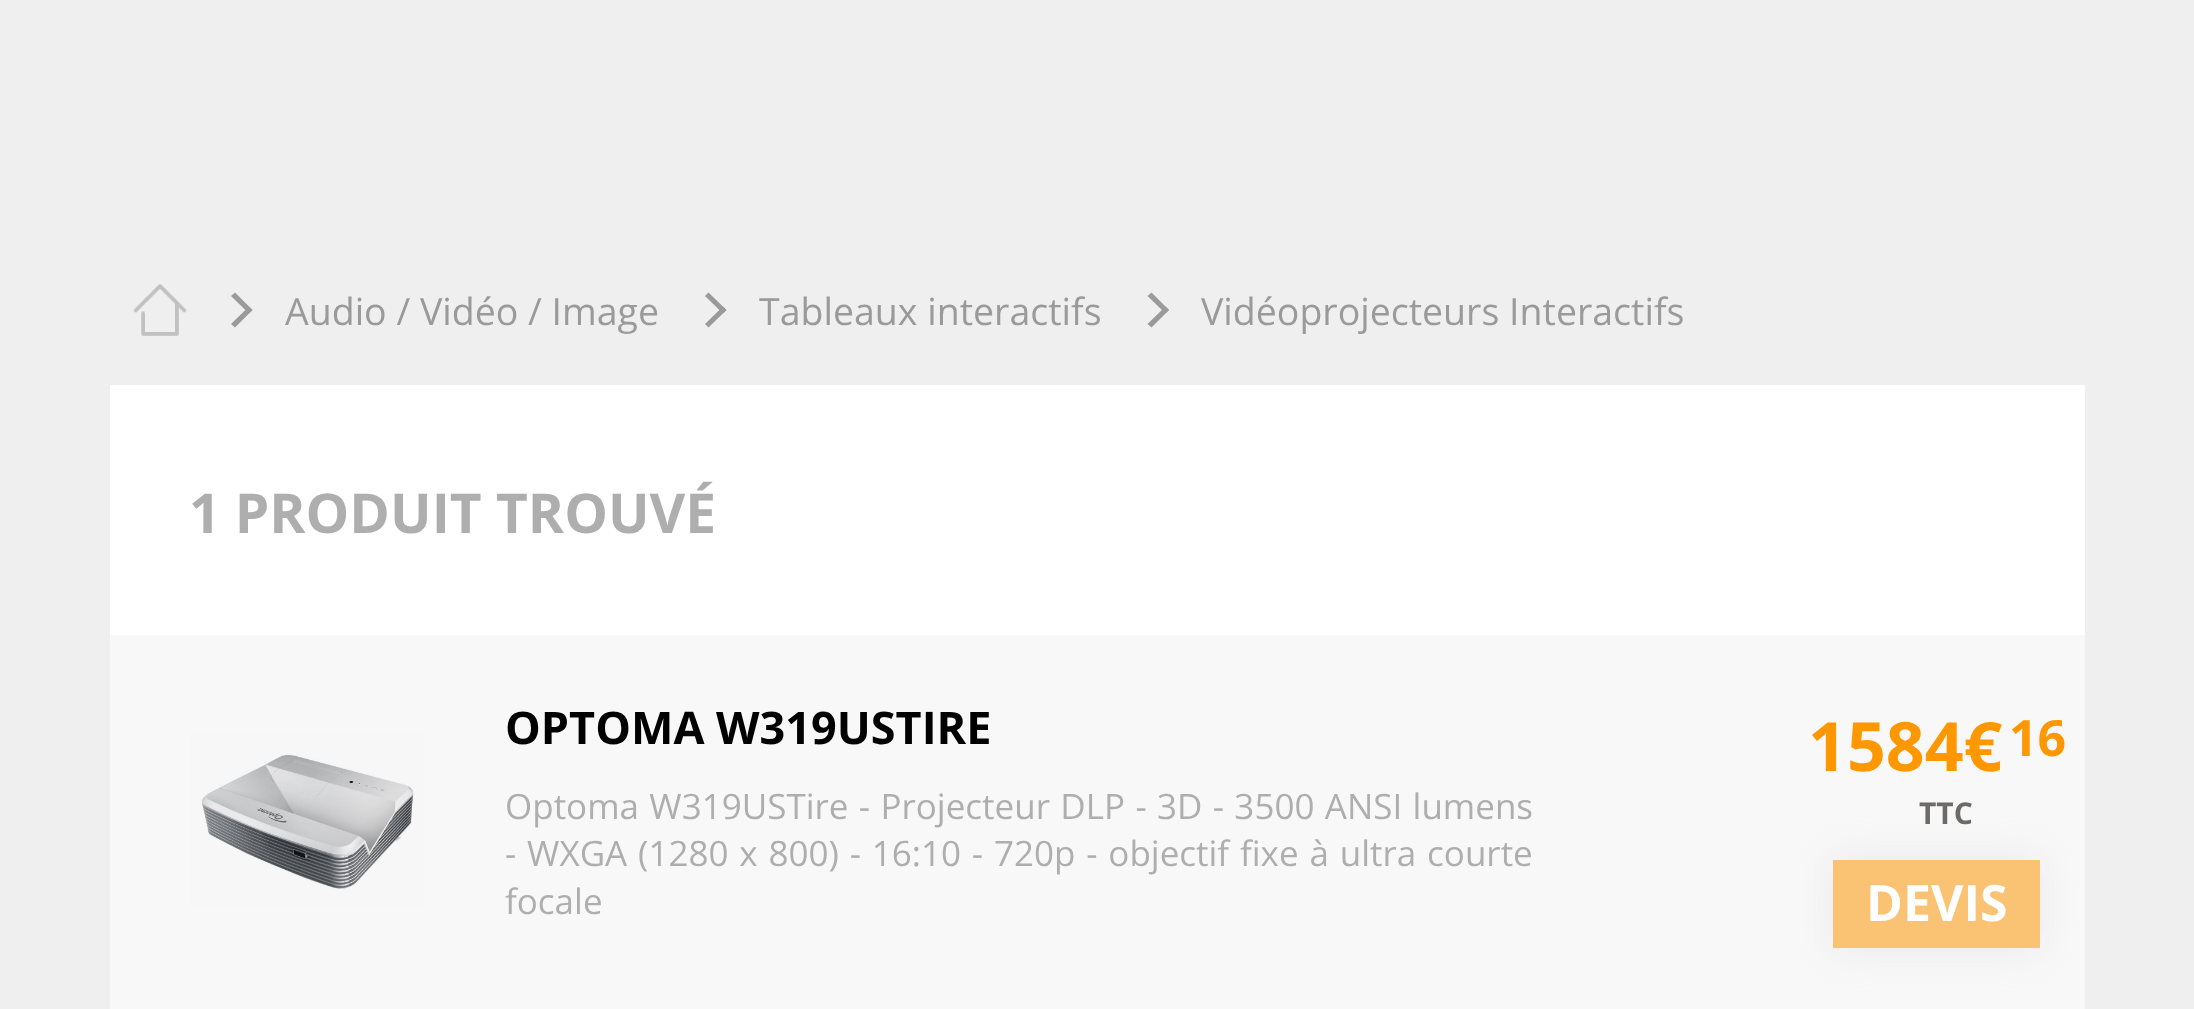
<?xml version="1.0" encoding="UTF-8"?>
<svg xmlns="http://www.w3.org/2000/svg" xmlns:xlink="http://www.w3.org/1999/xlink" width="2194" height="1009">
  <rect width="100%" height="100%" fill="#efefef" />
  <image x="133" y="284" width="54" height="52" xlink:href="image1.png" />
  <path d="M 231 296 l 4 -3.5 l 17.5 17.5 l -3.5 3.5 z" fill="#9a9a9a" />
  <path d="M 231 324 l 18 -17.5 l 3.5 3.5 l -17.5 17.5 z" fill="#9a9a9a" />
  <path d="M 705 296 l 3.5 -3.5 l 18 17.5 l -3.5 3.5 z" fill="#9a9a9a" />
  <path d="M 705 324 l 18 -17.5 l 3.5 3.5 l -18 17.5 z" fill="#9a9a9a" />
  <path d="M 1147.5 296 l 4 -3.5 l 17.5 17.5 l -3.5 3.5 z" fill="#9a9a9a" />
  <path d="M 1147.5 324 l 18 -17.5 l 3.5 3.5 l -17.5 17.5 z" fill="#9a9a9a" />
  <rect x="110" y="385" width="1975" height="250" fill="#ffffff" />
  <rect x="110" y="635" width="1975" height="374" fill="#f8f8f8" />
  <image x="190" y="733" width="235" height="177" xlink:href="image2.png" />
  <rect x="1833" y="860" width="207" height="88" fill="#dcdcdc" fill-opacity="0.5" filter="blur(19px)" />
  <rect x="1833" y="860" width="207" height="88" fill="#f9c373" />
  <text x="285" y="325" style="font-family: Open Sans; font-size: 37.5px; fill: #9a9a9a">Audio / Vidéo / Image</text>
  <text x="759" y="325" style="font-family: Open Sans; font-size: 37.5px; fill: #9a9a9a">Tableaux interactifs</text>
  <text x="1201" y="325" style="font-family: Open Sans; font-size: 37.5px; fill: #9a9a9a">Vidéoprojecteurs Interactifs</text>
  <text x="189" y="533" style="font-family: Open Sans; font-size: 55px; font-weight: bold; fill: #aeaeae">1 PRODUIT TROUVÉ</text>
  <text x="505" y="744" style="font-family: Open Sans; font-size: 45px; font-weight: bold; fill: #000000">OPTOMA W319USTIRE</text>
  <text x="505" y="819" word-spacing="1.25" style="font-family: Open Sans; font-size: 35px; fill: #aeaeae">Optoma W319USTire - Projecteur DLP - 3D - 3500 ANSI lumens</text>
  <text x="505" y="866" word-spacing="1.75" style="font-family: Open Sans; font-size: 35px; fill: #aeaeae">- WXGA (1280 x 800) - 16:10 - 720p - objectif fixe à ultra courte</text>
  <text x="505" y="914" style="font-family: Open Sans; font-size: 35px; fill: #aeaeae">focale</text>
  <text x="1808" y="771" style="font-family: Open Sans; font-size: 68px; font-weight: bold; fill: #ff9800">1584€</text>
  <text x="2009" y="756" style="font-family: Open Sans; font-size: 50px; font-weight: bold; fill: #ff9800">16</text>
  <text x="1919" y="824" style="font-family: Open Sans; font-size: 30px; font-weight: bold; fill: #6e6a6a">TTC</text>
  <text x="1866" y="921" style="font-family: Open Sans; font-size: 50px; font-weight: bold; fill: #ffffff">DEVIS</text>
</svg>
